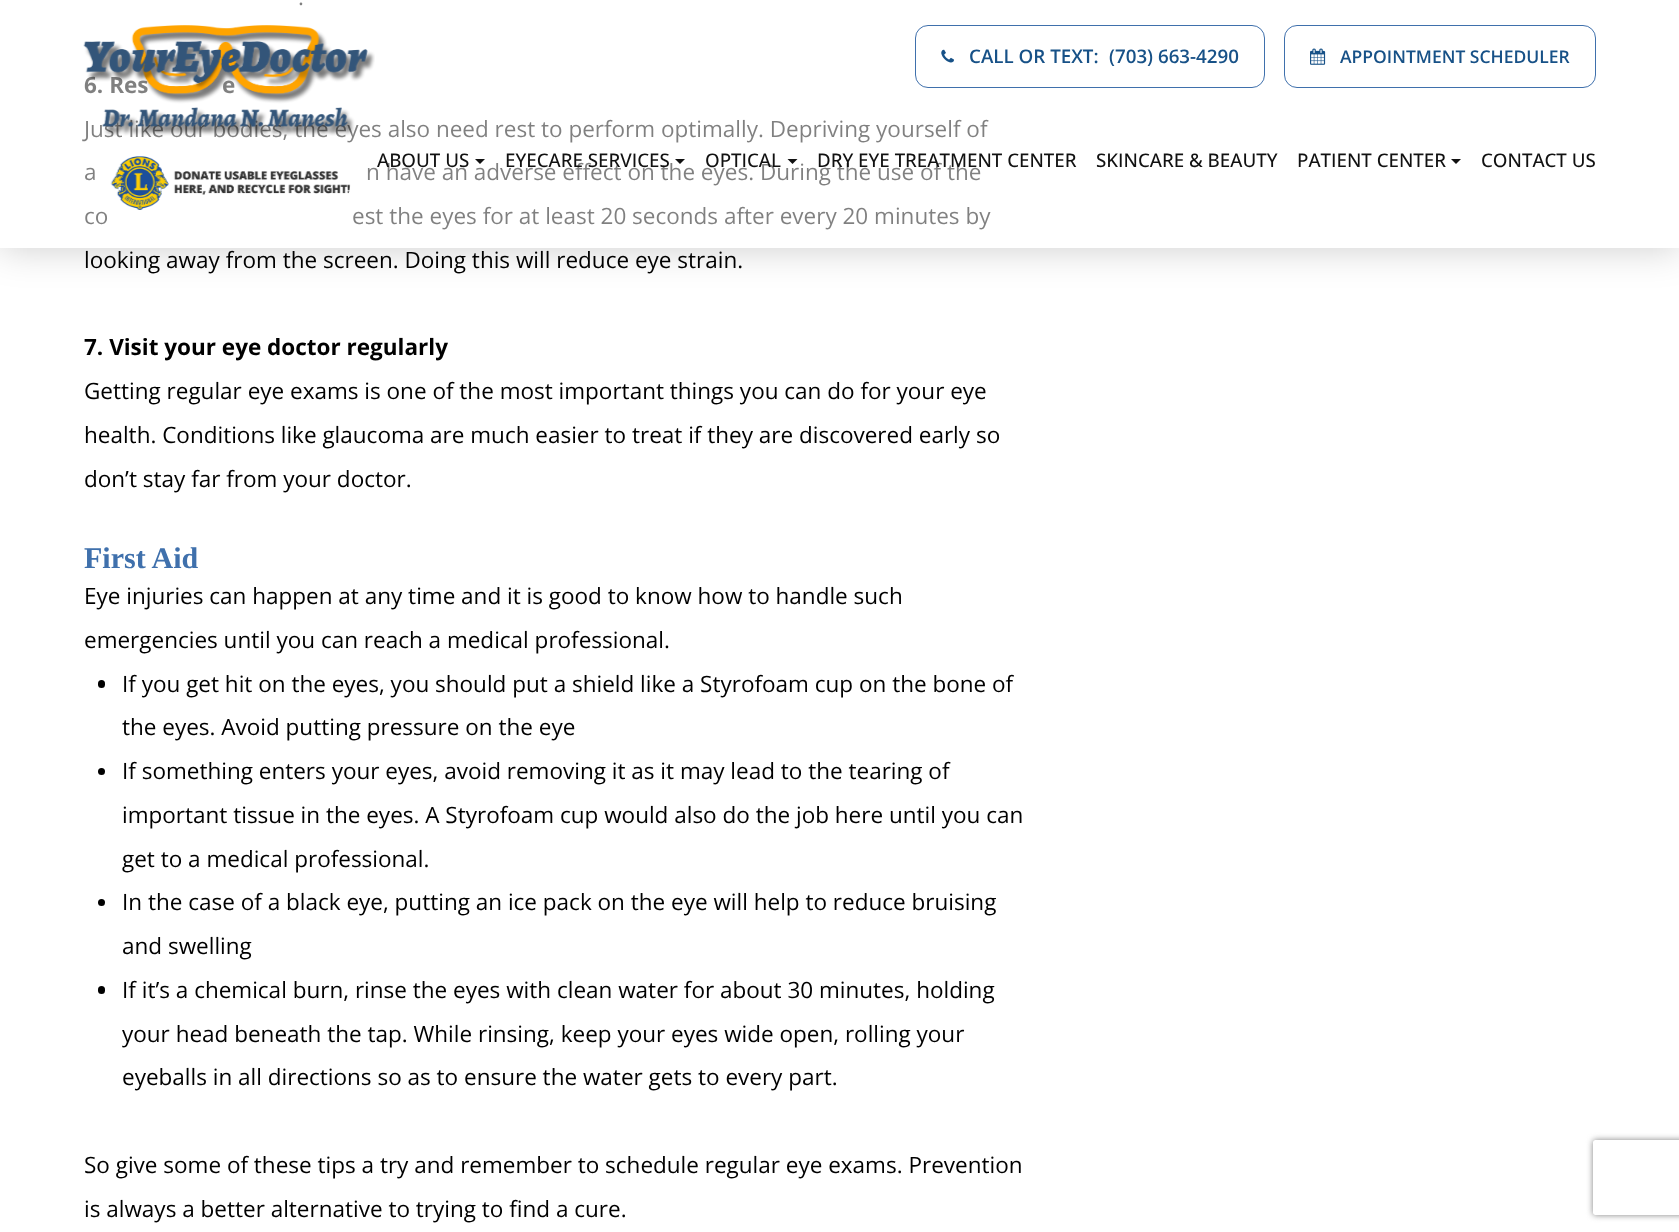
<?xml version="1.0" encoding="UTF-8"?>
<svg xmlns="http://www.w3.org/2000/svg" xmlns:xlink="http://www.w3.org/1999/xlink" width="1679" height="1232">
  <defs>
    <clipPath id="clip1"><path d="M 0 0 h 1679 v 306 h -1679 z m 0 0 h 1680 v 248 h -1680 z" clip-rule="evenodd" /></clipPath>
    <clipPath id="clip2"><path d="M 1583 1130 h 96 v 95 h -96 z m 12.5 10 h 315 c 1.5 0 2.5 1 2.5 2.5 v 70 c 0 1.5 -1 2.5 -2.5 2.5 h -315 c -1.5 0 -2.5 -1 -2.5 -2.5 v -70 c 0 -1.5 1 -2.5 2.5 -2.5 z" clip-rule="evenodd" /></clipPath>
  </defs>
  <rect width="100%" height="100%" fill="#ffffff" />
  <rect x="98" y="680" width="7" height="8" rx="3.5" fill="#000000" />
  <circle cx="101.5" cy="771.5" r="3.5" fill="#000000" />
  <circle cx="101.5" cy="902.5" r="3.5" fill="#000000" />
  <rect x="98" y="986" width="7" height="8" rx="3.5" fill="#000000" />
  <g clip-path="url(#clip1)">
    <rect width="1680" height="248" fill="#000000" fill-opacity="0.2" filter="blur(19px)" />
  </g>
  <g clip-path="url(#clip2)">
    <rect x="1593" y="1140" width="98" height="75" rx="2.5" fill="#808080" filter="blur(3px)" />
  </g>
  <text x="298" y="5" style="font-family: Open Sans; font-size: 22.5px; fill: #000000">.</text>
  <text x="84" y="93" style="font-family: Open Sans; font-size: 22.5px; font-weight: bold; fill: #000000">6. Res</text>
  <text x="222" y="93" style="font-family: Open Sans; font-size: 22.5px; font-weight: bold; fill: #000000">e</text>
  <text x="84" y="137" style="font-family: Open Sans; font-size: 22.5px; fill: #000000">Just like our bodies, the eyes also need rest to perform optimally. Depriving yourself of</text>
  <text x="84" y="180" style="font-family: Open Sans; font-size: 22.5px; fill: #000000">a</text>
  <text x="366" y="180" style="font-family: Open Sans; font-size: 22.5px; fill: #000000">n have an adverse effect on the eyes. During the use of the</text>
  <text x="84" y="224" style="font-family: Open Sans; font-size: 22.5px; fill: #000000">co</text>
  <text x="352" y="224" style="font-family: Open Sans; font-size: 22.5px; fill: #000000">est the eyes for at least 20 seconds after every 20 minutes by</text>
  <text x="84" y="268" style="font-family: Open Sans; font-size: 22.5px; fill: #000000">looking away from the screen. Doing this will reduce eye strain.</text>
  <text x="84" y="355" style="font-family: Open Sans; font-size: 22.5px; font-weight: bold; fill: #000000">7. Visit your eye doctor regularly</text>
  <text x="84" y="399" style="font-family: Open Sans; font-size: 22.5px; fill: #000000">Getting regular eye exams is one of the most important things you can do for your eye</text>
  <text x="84" y="443" style="font-family: Open Sans; font-size: 22.5px; fill: #000000">health. Conditions like glaucoma are much easier to treat if they are discovered early so</text>
  <text x="84" y="487" style="font-family: Open Sans; font-size: 22.5px; fill: #000000">don’t stay far from your doctor.</text>
  <text x="84" y="568" style="font-family: Liberation Serif; font-size: 30px; font-weight: bold; fill: #3f70ac">First Aid</text>
  <text x="84" y="604" style="font-family: Open Sans; font-size: 22.5px; fill: #000000">Eye injuries can happen at any time and it is good to know how to handle such</text>
  <text x="84" y="648" style="font-family: Open Sans; font-size: 22.5px; fill: #000000">emergencies until you can reach a medical professional.</text>
  <text x="122" y="692" style="font-family: Open Sans; font-size: 22.5px; fill: #000000">If you get hit on the eyes, you should put a shield like a Styrofoam cup on the bone of</text>
  <text x="122" y="735" style="font-family: Open Sans; font-size: 22.5px; fill: #000000">the eyes. Avoid putting pressure on the eye</text>
  <text x="122" y="779" style="font-family: Open Sans; font-size: 22.5px; fill: #000000">If something enters your eyes, avoid removing it as it may lead to the tearing of</text>
  <text x="122" y="823" style="font-family: Open Sans; font-size: 22.5px; fill: #000000">important tissue in the eyes. A Styrofoam cup would also do the job here until you can</text>
  <text x="122" y="867" style="font-family: Open Sans; font-size: 22.5px; fill: #000000">get to a medical professional.</text>
  <text x="122" y="910" style="font-family: Open Sans; font-size: 22.5px; fill: #000000">In the case of a black eye, putting an ice pack on the eye will help to reduce bruising</text>
  <text x="122" y="954" style="font-family: Open Sans; font-size: 22.5px; fill: #000000">and swelling</text>
  <text x="122" y="998" style="font-family: Open Sans; font-size: 22.5px; fill: #000000">If it’s a chemical burn, rinse the eyes with clean water for about 30 minutes, holding</text>
  <text x="122" y="1042" style="font-family: Open Sans; font-size: 22.5px; fill: #000000">your head beneath the tap. While rinsing, keep your eyes wide open, rolling your</text>
  <text x="122" y="1085" style="font-family: Open Sans; font-size: 22.5px; fill: #000000">eyeballs in all directions so as to ensure the water gets to every part.</text>
  <text x="84" y="1173" style="font-family: Open Sans; font-size: 22.5px; fill: #000000">So give some of these tips a try and remember to schedule regular eye exams. Prevention</text>
  <text x="84" y="1217" style="font-family: Open Sans; font-size: 22.5px; fill: #000000">is always a better alternative to trying to find a cure.</text>
  <rect y="2" width="1679" height="246" fill="#ffffff" fill-opacity="0.5" />
  <image x="83" y="25" width="292" height="111" xlink:href="image1.png" />
  <image x="110" y="156" width="241" height="54" xlink:href="image2.png" />
  <rect x="915.5" y="25.5" width="349" height="62" rx="12.5" fill="none" stroke="#3f70ac" />
  <image x="941" y="49" width="13" height="14" xlink:href="image3.png" />
  <text x="969" y="63" style="font-family: Open Sans; font-size: 18.75px; font-weight: 600; fill: #175187">CALL OR TEXT:</text>
  <text x="1109" y="63" style="font-family: Open Sans; font-size: 18.75px; font-weight: 600; fill: #175187">(703) 663-4290</text>
  <rect x="1284.5" y="25.5" width="311" height="62" rx="12.5" fill="none" stroke="#3f70ac" />
  <image x="1310" y="48" width="16" height="17" xlink:href="image4.png" />
  <text x="1340" y="63" style="font-family: Open Sans; font-size: 17.5px; font-weight: 600; fill: #175187">APPOINTMENT SCHEDULER</text>
  <text x="377" y="167" style="font-family: Open Sans; font-size: 18.75px; font-weight: 500; fill: #111111">ABOUT US</text>
  <path d="M 475 159 h 10 l -5 5 z" fill="#111111" />
  <text x="505" y="167" style="font-family: Open Sans; font-size: 18.75px; font-weight: 500; fill: #111111">EYECARE SERVICES</text>
  <path d="M 675 159 h 10 l -5 5 z" fill="#111111" />
  <text x="705" y="167" style="font-family: Open Sans; font-size: 18.75px; font-weight: 500; fill: #111111">OPTICAL</text>
  <path d="M 787.5 159 h 10 l -5 5 z" fill="#111111" />
  <text x="817" y="167" style="font-family: Open Sans; font-size: 18.75px; font-weight: 500; fill: #111111">DRY EYE TREATMENT CENTER</text>
  <text x="1096" y="167" style="font-family: Open Sans; font-size: 18.75px; font-weight: 500; fill: #111111">SKINCARE &amp; BEAUTY</text>
  <text x="1297" y="167" style="font-family: Open Sans; font-size: 18.75px; font-weight: 500; fill: #111111">PATIENT CENTER</text>
  <path d="M 1451 159 h 10 l -5 5 z" fill="#111111" />
  <text x="1481" y="167" style="font-family: Open Sans; font-size: 18.75px; font-weight: 500; fill: #111111">CONTACT US</text>
</svg>
